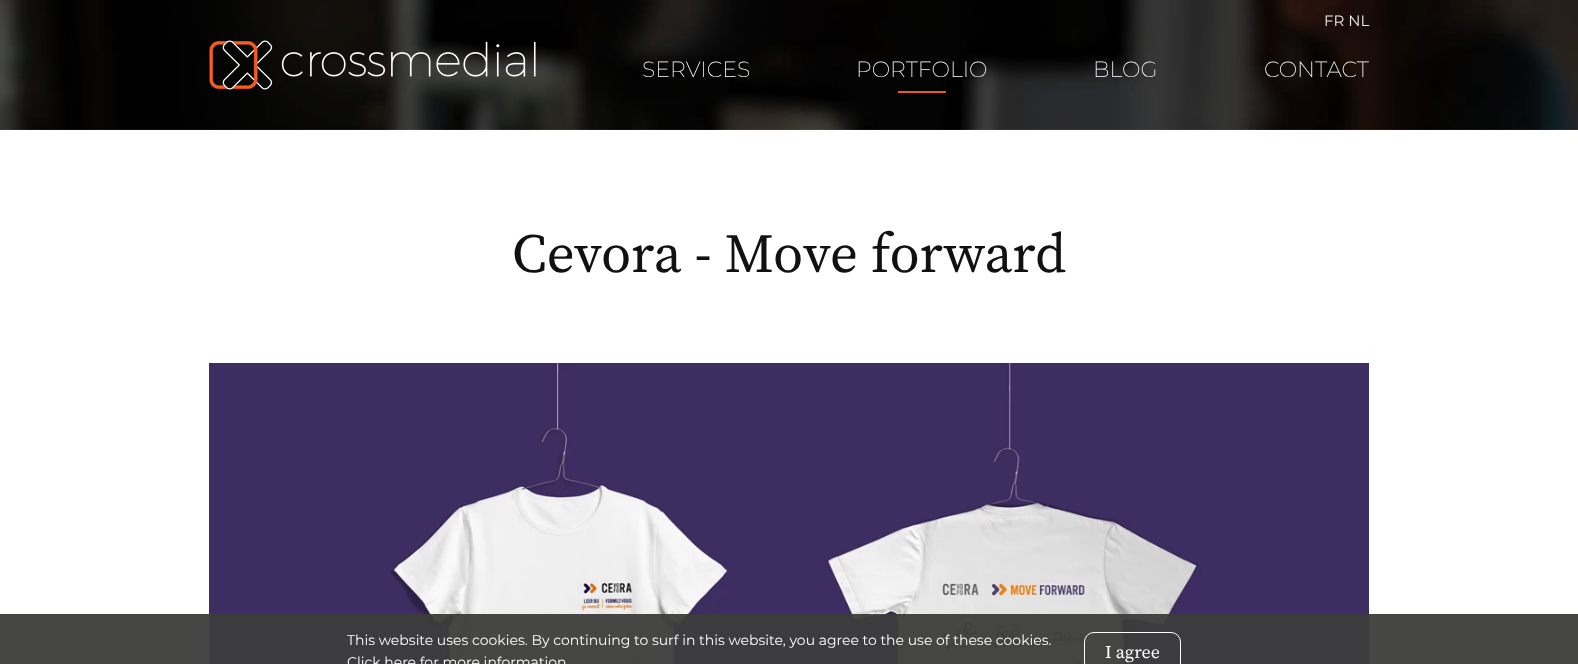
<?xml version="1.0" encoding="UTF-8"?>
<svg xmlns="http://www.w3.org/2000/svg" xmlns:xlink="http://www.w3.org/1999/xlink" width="1578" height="664">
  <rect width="100%" height="100%" fill="#ffffff" />
  <image x="0" y="0" width="1578" height="130" xlink:href="image1.png" />
  <image x="209" y="40" width="327" height="50" xlink:href="image2.png" />
  <rect x="898" y="91" width="48" height="2" fill="#ea591f" />
  <image x="209" y="363" width="1160" height="301" xlink:href="image3.png" />
  <rect y="614" width="1578" height="50" fill="#3c3c3b" fill-opacity="0.95" />
  <rect x="1084.5" y="632.5" width="96" height="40" rx="9.5" fill="none" stroke="#ffffff" />
  <text x="1324" y="26" style="font-family: Montserrat; font-size: 15px; fill: #e8e7e6">FR NL</text>
  <text x="642" y="77" style="font-family: Montserrat; font-size: 22px; font-weight: 200; fill: #ffffff">SERVICES</text>
  <text x="856" y="77" style="font-family: Montserrat; font-size: 22px; font-weight: 200; fill: #ffffff">PORTFOLIO</text>
  <text x="1093" y="77" style="font-family: Montserrat; font-size: 22px; font-weight: 200; fill: #ffffff">BLOG</text>
  <text x="1264" y="77" style="font-family: Montserrat; font-size: 22px; font-weight: 200; fill: #ffffff">CONTACT</text>
  <text x="512" y="272" style="font-family: Source Serif Pro; font-size: 55px; fill: #111111">Cevora - Move forward</text>
  <text x="347" y="645" style="font-family: Montserrat; font-size: 14px; fill: #ffffff">This website uses cookies. By continuing to surf in this website, you agree to the use of these cookies.</text>
  <text x="347" y="667" style="font-family: Montserrat; font-size: 14px; fill: #ffffff">Click here for more information</text>
  <text x="1105" y="658" style="font-family: Source Serif Pro; font-size: 18px; fill: #ffffff">I agree</text>
</svg>
